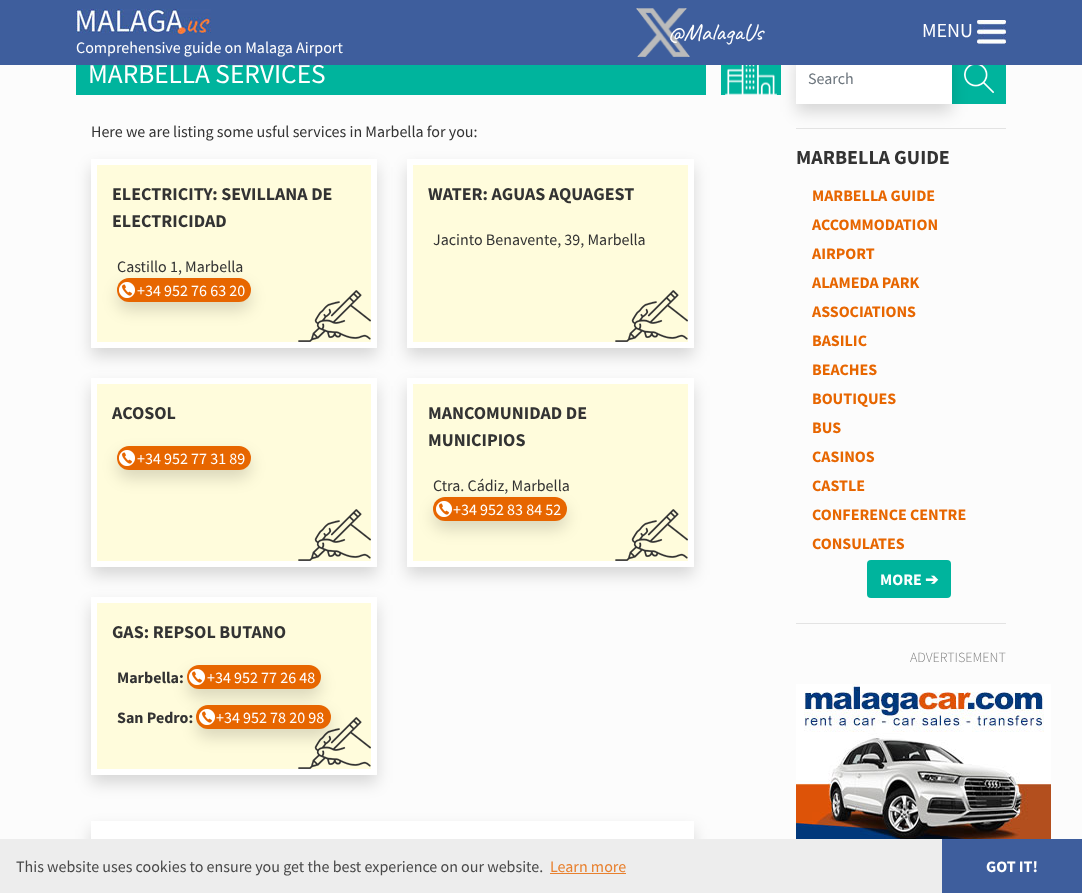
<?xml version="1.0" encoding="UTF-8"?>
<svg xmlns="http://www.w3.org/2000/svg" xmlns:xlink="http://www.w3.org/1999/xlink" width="1082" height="893">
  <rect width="100%" height="100%" fill="#fcfcfc" />
  <rect x="76" y="65" width="630" height="30" fill="#00b49d" />
  <rect x="721" y="65" width="60" height="30" fill="#00b49d" />
  <image x="725" y="65" width="52" height="30" xlink:href="image4.png" />
  <rect x="91" y="167" width="286" height="189" fill="#000000" fill-opacity="0.15" filter="blur(8px)" />
  <rect x="94" y="162" width="280" height="183" fill="#fffcdc" stroke="#ffffff" stroke-width="6" />
  <image x="298" y="290" width="73" height="52" xlink:href="image5.png" />
  <rect x="117" y="286" width="134" height="24" rx="12" fill="#000000" fill-opacity="0.15" filter="blur(8px)" />
  <rect x="117" y="278" width="134" height="24" rx="12" fill="#e76600" />
  <image x="119" y="282" width="16" height="16" xlink:href="image6.png" />
  <rect x="407" y="167" width="287" height="189" fill="#000000" fill-opacity="0.15" filter="blur(8px)" />
  <rect x="410" y="162" width="281" height="183" fill="#fffcdc" stroke="#ffffff" stroke-width="6" />
  <image x="615" y="290" width="73" height="52" xlink:href="image5.png" />
  <rect x="91" y="386" width="286" height="189" fill="#000000" fill-opacity="0.15" filter="blur(8px)" />
  <rect x="94" y="381" width="280" height="183" fill="#fffcdc" stroke="#ffffff" stroke-width="6" />
  <image x="298" y="509" width="73" height="52" xlink:href="image5.png" />
  <rect x="117" y="454" width="134" height="24" rx="12" fill="#000000" fill-opacity="0.15" filter="blur(8px)" />
  <rect x="117" y="446" width="134" height="24" rx="12" fill="#e76600" />
  <image x="119" y="450" width="16" height="16" xlink:href="image6.png" />
  <rect x="407" y="386" width="287" height="189" fill="#000000" fill-opacity="0.15" filter="blur(8px)" />
  <rect x="410" y="381" width="281" height="183" fill="#fffcdc" stroke="#ffffff" stroke-width="6" />
  <image x="615" y="509" width="73" height="52" xlink:href="image5.png" />
  <rect x="433" y="505" width="134" height="24" rx="12" fill="#000000" fill-opacity="0.15" filter="blur(8px)" />
  <rect x="433" y="497" width="134" height="24" rx="12" fill="#e76600" />
  <image x="436" y="501" width="16" height="16" xlink:href="image7.png" />
  <rect x="91" y="605" width="286" height="178" fill="#000000" fill-opacity="0.15" filter="blur(8px)" />
  <rect x="94" y="600" width="280" height="172" fill="#fffcdc" stroke="#ffffff" stroke-width="6" />
  <image x="298" y="717" width="73" height="52" xlink:href="image5.png" />
  <rect x="187" y="673" width="134" height="24" rx="12" fill="#000000" fill-opacity="0.15" filter="blur(8px)" />
  <rect x="187" y="665" width="134" height="24" rx="12" fill="#e76600" />
  <image x="189" y="669" width="16" height="16" xlink:href="image6.png" />
  <rect x="196" y="713" width="135" height="24" rx="12" fill="#000000" fill-opacity="0.15" filter="blur(8px)" />
  <rect x="196" y="705" width="135" height="24" rx="12" fill="#e76600" />
  <image x="199" y="709" width="16" height="16" xlink:href="image7.png" />
  <rect x="91" y="829" width="603" height="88" fill="#000000" fill-opacity="0.15" filter="blur(8px)" />
  <rect x="91" y="821" width="603" height="18" fill="#ffffff" />
  <rect x="952" y="65" width="54" height="39" fill="#00b49d" />
  <image x="964" y="65" width="30" height="28" xlink:href="image8.png" />
  <rect x="796" y="128" width="210" height="1" fill="#e3e3e3" />
  <rect x="796" y="60" width="156" height="52" fill="#000000" fill-opacity="0.15" filter="blur(8px)" />
  <rect x="796" y="65" width="156" height="39" fill="#ffffff" />
  <rect x="867" y="560" width="84" height="38" rx="4" fill="#00b49d" />
  <rect x="796" y="623" width="210" height="1" fill="#e3e3e3" />
  <image x="796" y="684" width="255" height="155" xlink:href="image9.png" />
  <rect y="839" width="942" height="54" fill="#ededed" />
  <rect x="550" y="873" width="76" height="1" fill="#e8812f" />
  <rect x="942" y="839" width="140" height="54" fill="#3e5e9d" />
  <text x="88" y="83" style="font-family: Source Sans Pro; font-size: 27.25px; fill: #ffffff">MARBELLA SERVICES</text>
  <rect width="1082" height="65" fill="#3e5e9d" />
  <image x="636" y="8" width="54" height="49" xlink:href="image1.png" />
  <text x="668" y="40" style="font-family: Caveat; font-size: 24px; fill: #ffffff">@MalagaUs</text>
  <image x="977" y="20" width="29" height="24" xlink:href="image2.png" />
  <text x="922" y="37" style="font-family: Source Sans Pro; font-size: 20px; fill: #ffffff">MENU</text>
  <text x="76" y="53" style="font-family: Source Sans Pro; font-size: 16px; fill: #ffffff">Comprehensive guide on Malaga Airport</text>
  <image x="76" y="9" width="135" height="26" xlink:href="image3.png" />
  <text x="91" y="137" style="font-family: Source Sans Pro; font-size: 16px; fill: #333333">Here we are listing some usful services in Marbella for you:</text>
  <text x="112" y="200" style="font-family: Source Sans Pro; font-size: 18px; font-weight: bold; fill: #333333">ELECTRICITY: SEVILLANA DE</text>
  <text x="112" y="227" style="font-family: Source Sans Pro; font-size: 18px; font-weight: bold; fill: #333333">ELECTRICIDAD</text>
  <text x="117" y="272" style="font-family: Source Sans Pro; font-size: 16px; fill: #333333">Castillo 1, Marbella</text>
  <text x="137" y="296" style="font-family: Source Sans Pro; font-size: 16px; fill: #ffffff">+34 952 76 63 20</text>
  <text x="428" y="200" style="font-family: Source Sans Pro; font-size: 18px; font-weight: bold; fill: #333333">WATER: AGUAS AQUAGEST</text>
  <text x="433" y="245" style="font-family: Source Sans Pro; font-size: 16px; fill: #333333">Jacinto Benavente, 39, Marbella</text>
  <text x="112" y="419" style="font-family: Source Sans Pro; font-size: 18px; font-weight: bold; fill: #333333">ACOSOL</text>
  <text x="137" y="464" style="font-family: Source Sans Pro; font-size: 16px; fill: #ffffff">+34 952 77 31 89</text>
  <text x="428" y="419" style="font-family: Source Sans Pro; font-size: 18px; font-weight: bold; fill: #333333">MANCOMUNIDAD DE</text>
  <text x="428" y="446" style="font-family: Source Sans Pro; font-size: 18px; font-weight: bold; fill: #333333">MUNICIPIOS</text>
  <text x="433" y="491" style="font-family: Source Sans Pro; font-size: 16px; fill: #333333">Ctra. Cádiz, Marbella</text>
  <text x="453" y="515" style="font-family: Source Sans Pro; font-size: 16px; fill: #ffffff">+34 952 83 84 52</text>
  <text x="112" y="638" style="font-family: Source Sans Pro; font-size: 18px; font-weight: bold; fill: #333333">GAS: REPSOL BUTANO</text>
  <text x="117" y="683" style="font-family: Source Sans Pro; font-size: 16px; font-weight: bold; fill: #333333">Marbella:</text>
  <text x="207" y="683" style="font-family: Source Sans Pro; font-size: 16px; fill: #ffffff">+34 952 77 26 48</text>
  <text x="117" y="723" style="font-family: Source Sans Pro; font-size: 16px; font-weight: bold; fill: #333333">San Pedro:</text>
  <text x="216" y="723" style="font-family: Source Sans Pro; font-size: 16px; fill: #ffffff">+34 952 78 20 98</text>
  <text x="808" y="84" style="font-family: Source Sans Pro; font-size: 16px; fill: #6c757d">Search</text>
  <text x="796" y="164" style="font-family: Source Sans Pro; font-size: 20px; font-weight: bold; fill: #333333">MARBELLA GUIDE</text>
  <text x="812" y="201" style="font-family: Source Sans Pro; font-size: 16px; font-weight: bold; fill: #e76600">MARBELLA GUIDE</text>
  <text x="812" y="230" style="font-family: Source Sans Pro; font-size: 16px; font-weight: bold; fill: #e76600">ACCOMMODATION</text>
  <text x="812" y="259" style="font-family: Source Sans Pro; font-size: 16px; font-weight: bold; fill: #e76600">AIRPORT</text>
  <text x="812" y="288" style="font-family: Source Sans Pro; font-size: 16px; font-weight: bold; fill: #e76600">ALAMEDA PARK</text>
  <text x="812" y="317" style="font-family: Source Sans Pro; font-size: 16px; font-weight: bold; fill: #e76600">ASSOCIATIONS</text>
  <text x="812" y="346" style="font-family: Source Sans Pro; font-size: 16px; font-weight: bold; fill: #e76600">BASILIC</text>
  <text x="812" y="375" style="font-family: Source Sans Pro; font-size: 16px; font-weight: bold; fill: #e76600">BEACHES</text>
  <text x="812" y="404" style="font-family: Source Sans Pro; font-size: 16px; font-weight: bold; fill: #e76600">BOUTIQUES</text>
  <text x="812" y="433" style="font-family: Source Sans Pro; font-size: 16px; font-weight: bold; fill: #e76600">BUS</text>
  <text x="812" y="462" style="font-family: Source Sans Pro; font-size: 16px; font-weight: bold; fill: #e76600">CASINOS</text>
  <text x="812" y="491" style="font-family: Source Sans Pro; font-size: 16px; font-weight: bold; fill: #e76600">CASTLE</text>
  <text x="812" y="520" style="font-family: Source Sans Pro; font-size: 16px; font-weight: bold; fill: #e76600">CONFERENCE CENTRE</text>
  <text x="812" y="549" style="font-family: Source Sans Pro; font-size: 16px; font-weight: bold; fill: #e76600">CONSULATES</text>
  <text x="880" y="585" style="font-family: Source Sans Pro; font-size: 16px; font-weight: bold; fill: #ffffff">MORE</text>
  <text x="925" y="585" style="font-family: DejaVu Sans; font-size: 16px; font-weight: bold; fill: #ffffff">➔</text>
  <text x="910" y="662" style="font-family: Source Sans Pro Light; font-size: 14px; font-weight: 300; fill: #7f7f7f">ADVERTISEMENT</text>
  <text x="16" y="872" style="font-family: Source Sans Pro; font-size: 16px; fill: #494949">This website uses cookies to ensure you get the best experience on our website.</text>
  <text x="550" y="872" style="font-family: Source Sans Pro; font-size: 16px; fill: #e8812f">Learn more</text>
  <text x="986" y="872" style="font-family: Source Sans Pro; font-size: 16px; font-weight: bold; fill: #ffffff">GOT IT!</text>
</svg>
